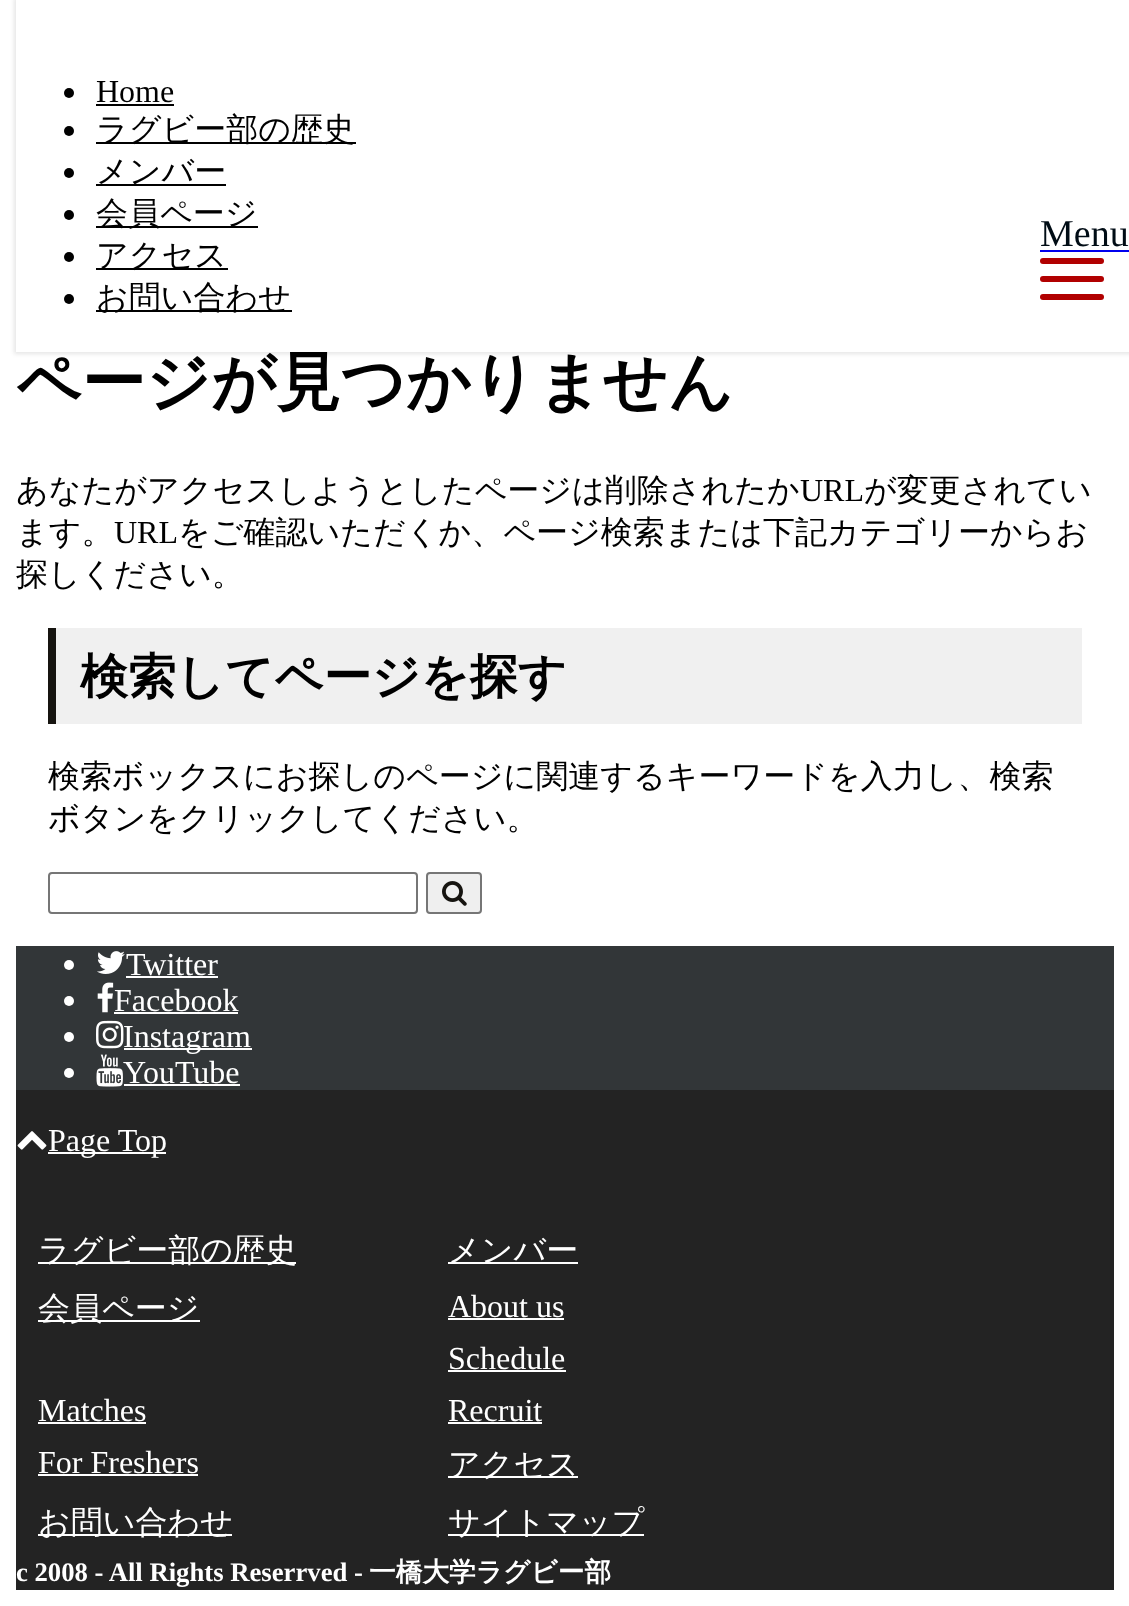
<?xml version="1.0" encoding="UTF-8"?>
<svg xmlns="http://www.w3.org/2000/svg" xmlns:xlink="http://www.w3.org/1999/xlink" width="1129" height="1606">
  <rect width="100%" height="100%" fill="#ffffff" />
  <rect x="14" y="-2" width="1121" height="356" fill="#000000" fill-opacity="0.1" filter="blur(2px)" />
  <rect x="16" width="1113" height="352" fill="#ffffff" />
  <circle cx="69" cy="93" r="5" fill="#000000" />
  <rect x="96" y="104" width="78" height="2" fill="#000000" />
  <circle cx="69" cy="131" r="5" fill="#000000" />
  <rect x="96" y="142" width="260" height="2" fill="#000000" />
  <circle cx="69" cy="173" r="5" fill="#000000" />
  <rect x="96" y="184" width="130" height="2" fill="#000000" />
  <circle cx="69" cy="215" r="5" fill="#000000" />
  <rect x="96" y="226" width="162" height="2" fill="#000000" />
  <circle cx="69" cy="257" r="5" fill="#000000" />
  <rect x="96" y="268" width="132" height="2" fill="#000000" />
  <circle cx="69" cy="299" r="5" fill="#000000" />
  <rect x="96" y="310" width="196" height="2" fill="#000000" />
  <rect x="1040" y="250" width="89" height="2" fill="#0000ee" />
  <rect x="1040" y="258" width="64" height="6" rx="3" fill="#b10000" />
  <rect x="1040" y="276" width="64" height="6" rx="3" fill="#b10000" />
  <rect x="1040" y="294" width="64" height="6" rx="3" fill="#b10000" />
  <rect x="56" y="628" width="1026" height="96" fill="#f0f0f0" />
  <rect x="48" y="628" width="8" height="96" fill="#161410" />
  <rect x="49" y="873" width="368" height="40" rx="3" fill="none" stroke="#767676" stroke-width="2" />
  <rect x="427" y="873" width="54" height="40" rx="3" fill="#efefef" stroke="#767676" stroke-width="2" />
  <image x="442" y="881" width="25" height="25" xlink:href="image1.png" />
  <rect x="16" y="1090" width="1098" height="500" fill="#232323" />
  <rect x="16" y="946" width="1098" height="144" fill="#323638" />
  <circle cx="69" cy="965" r="5" fill="#ffffff" />
  <image x="97" y="951" width="28" height="23" xlink:href="image2.png" />
  <rect x="126" y="976" width="92" height="2" fill="#ffffff" />
  <circle cx="69" cy="1001" r="5" fill="#ffffff" />
  <image x="97" y="982" width="17" height="31" xlink:href="image3.png" />
  <rect x="114" y="1012" width="124" height="2" fill="#ffffff" />
  <circle cx="69" cy="1037" r="5" fill="#ffffff" />
  <image x="96" y="1020" width="28" height="29" xlink:href="image4.png" />
  <rect x="124" y="1048" width="128" height="2" fill="#ffffff" />
  <circle cx="69" cy="1073" r="5" fill="#ffffff" />
  <image x="96" y="1054" width="27" height="33" xlink:href="image5.png" />
  <rect x="124" y="1084" width="116" height="2" fill="#ffffff" />
  <image x="17" y="1131" width="30" height="19" xlink:href="image6.png" />
  <rect x="48" y="1152" width="118" height="2" fill="#ffffff" />
  <rect x="38" y="1262" width="258" height="2" fill="#ffffff" />
  <rect x="448" y="1262" width="130" height="2" fill="#ffffff" />
  <rect x="38" y="1320" width="162" height="2" fill="#ffffff" />
  <rect x="448" y="1318" width="116" height="2" fill="#ffffff" />
  <rect x="448" y="1370" width="118" height="2" fill="#ffffff" />
  <rect x="38" y="1422" width="108" height="2" fill="#ffffff" />
  <rect x="448" y="1422" width="94" height="2" fill="#ffffff" />
  <rect x="38" y="1474" width="160" height="2" fill="#ffffff" />
  <rect x="448" y="1476" width="130" height="2" fill="#ffffff" />
  <rect x="38" y="1534" width="194" height="2" fill="#ffffff" />
  <rect x="448" y="1534" width="196" height="2" fill="#ffffff" />
  <text x="96" y="102" style="font-family: Liberation Serif; font-size: 32px; fill: #000000">Home</text>
  <text x="96" y="140" style="font-family: WenQuanYi Zen Hei; font-size: 32px; font-weight: 500; fill: #000000">ラグビー部の歴史</text>
  <text x="96" y="182" style="font-family: WenQuanYi Zen Hei; font-size: 32px; font-weight: 500; fill: #000000">メンバー</text>
  <text x="96" y="224" style="font-family: WenQuanYi Zen Hei; font-size: 32px; font-weight: 500; fill: #000000">会員ページ</text>
  <text x="96" y="266" style="font-family: WenQuanYi Zen Hei; font-size: 32px; font-weight: 500; fill: #000000">アクセス</text>
  <text x="96" y="308" style="font-family: WenQuanYi Zen Hei; font-size: 32px; font-weight: 500; fill: #000000">お問い合わせ</text>
  <text x="1040" y="246" style="font-family: Liberation Serif; font-size: 38px; fill: #000c15">Menu</text>
  <text x="16" y="404" style="font-family: WenQuanYi Zen Hei; font-size: 64px; font-weight: bold; fill: #000000">ページが見つかりません</text>
  <text x="16" y="501" style="font-family: WenQuanYi Zen Hei; font-size: 32px; font-weight: 500; fill: #000000">あなたがアクセスしようとしたページは削除されたか</text>
  <text x="800" y="501" style="font-family: Liberation Serif; font-size: 32px; fill: #000000">URL</text>
  <text x="864" y="501" style="font-family: WenQuanYi Zen Hei; font-size: 32px; font-weight: 500; fill: #000000">が変更されてい</text>
  <text x="16" y="543" style="font-family: WenQuanYi Zen Hei; font-size: 32px; font-weight: 500; fill: #000000">ます。</text>
  <text x="114" y="543" style="font-family: Liberation Serif; font-size: 32px; fill: #000000">URL</text>
  <text x="178" y="543" style="font-family: WenQuanYi Zen Hei; font-size: 32px; font-weight: 500; fill: #000000">をご確認いただくか、ページ検索または下記カテゴリーからお</text>
  <text x="16" y="585" style="font-family: WenQuanYi Zen Hei; font-size: 32px; font-weight: 500; fill: #000000">探しください。</text>
  <text x="80" y="693" style="font-family: WenQuanYi Zen Hei; font-size: 48px; font-weight: bold; fill: #000000">検索してページを探す</text>
  <text x="48" y="787" style="font-family: WenQuanYi Zen Hei; font-size: 32px; font-weight: 500; fill: #000000">検索ボックスにお探しのページに関連するキーワードを入力し、検索</text>
  <text x="48" y="829" style="font-family: WenQuanYi Zen Hei; font-size: 32px; font-weight: 500; fill: #000000">ボタンをクリックしてください。</text>
  <text x="126" y="975" style="font-family: Liberation Serif; font-size: 32px; fill: #ffffff">Twitter</text>
  <text x="114" y="1011" style="font-family: Liberation Serif; font-size: 32px; fill: #ffffff">Facebook</text>
  <text x="123" y="1047" style="font-family: Liberation Serif; font-size: 32px; fill: #ffffff">Instagram</text>
  <text x="123" y="1083" style="font-family: Liberation Serif; font-size: 32px; fill: #ffffff">YouTube</text>
  <text x="48" y="1151" style="font-family: Liberation Serif; font-size: 32px; fill: #ffffff">Page Top</text>
  <text x="38" y="1261" style="font-family: WenQuanYi Zen Hei; font-size: 32px; font-weight: 500; fill: #ffffff">ラグビー部の歴史</text>
  <text x="448" y="1261" style="font-family: WenQuanYi Zen Hei; font-size: 32px; font-weight: 500; fill: #ffffff">メンバー</text>
  <text x="38" y="1319" style="font-family: WenQuanYi Zen Hei; font-size: 32px; font-weight: 500; fill: #ffffff">会員ページ</text>
  <text x="448" y="1317" style="font-family: Liberation Serif; font-size: 32px; fill: #ffffff">About us</text>
  <text x="448" y="1369" style="font-family: Liberation Serif; font-size: 32px; fill: #ffffff">Schedule</text>
  <text x="38" y="1421" style="font-family: Liberation Serif; font-size: 32px; fill: #ffffff">Matches</text>
  <text x="448" y="1421" style="font-family: Liberation Serif; font-size: 32px; fill: #ffffff">Recruit</text>
  <text x="38" y="1473" style="font-family: Liberation Serif; font-size: 32px; fill: #ffffff">For Freshers</text>
  <text x="448" y="1475" style="font-family: WenQuanYi Zen Hei; font-size: 32px; font-weight: 500; fill: #ffffff">アクセス</text>
  <text x="38" y="1533" style="font-family: WenQuanYi Zen Hei; font-size: 32px; font-weight: 500; fill: #ffffff">お問い合わせ</text>
  <text x="448" y="1533" style="font-family: WenQuanYi Zen Hei; font-size: 32px; font-weight: 500; fill: #ffffff">サイトマップ</text>
  <text x="16" y="1581" style="font-family: Liberation Serif; font-size: 26.7px; font-weight: bold; fill: #ffffff">c 2008 - All Rights Reserrved -</text>
  <text x="369" y="1581" style="font-family: WenQuanYi Zen Hei; font-size: 26.7px; font-weight: bold; fill: #ffffff">一橋大学ラグビー部</text>
</svg>
